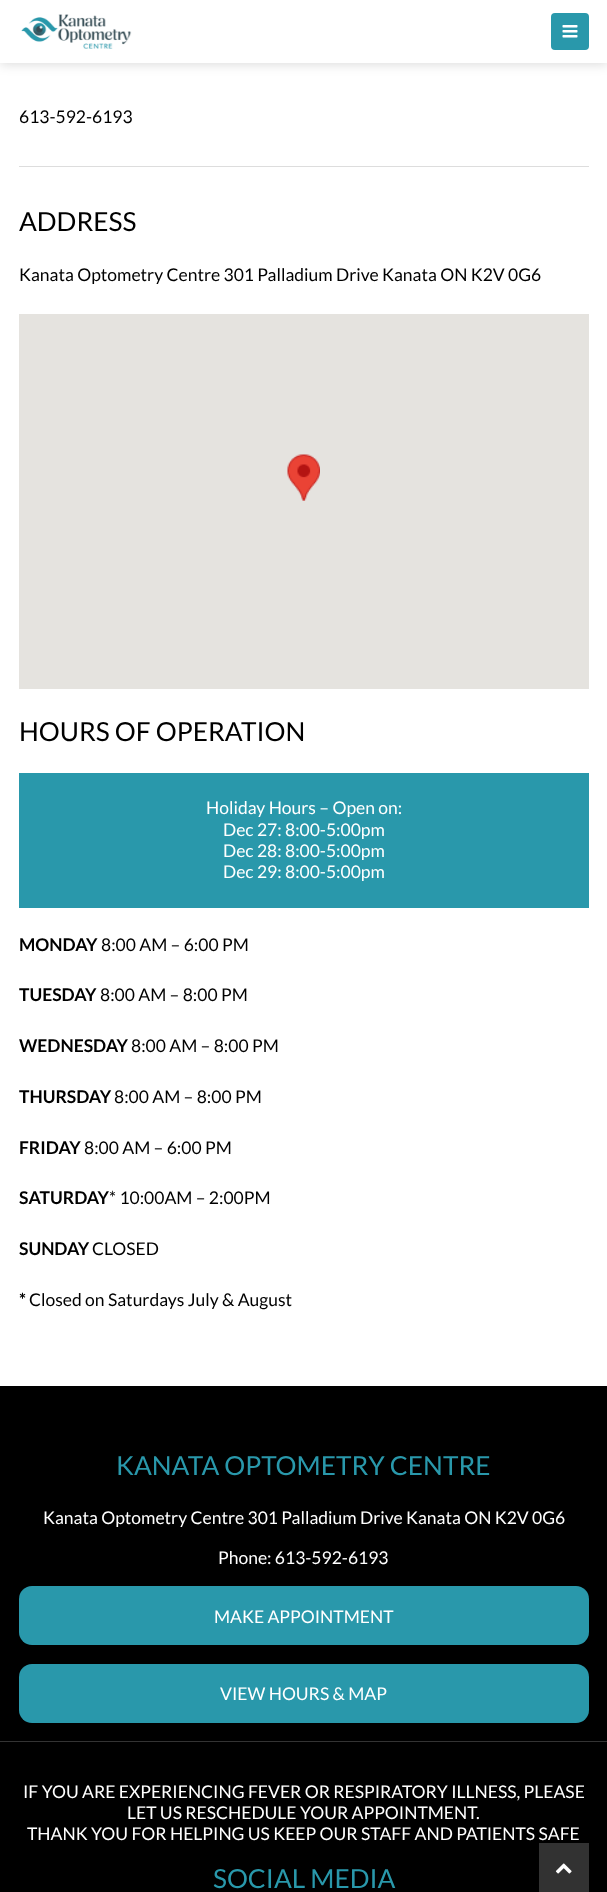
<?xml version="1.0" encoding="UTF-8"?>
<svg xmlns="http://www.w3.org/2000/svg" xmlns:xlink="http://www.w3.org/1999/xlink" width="607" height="1892">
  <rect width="100%" height="100%" fill="#ffffff" />
  <rect y="1" width="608" height="63" fill="#000000" fill-opacity="0.15" filter="blur(6px)" />
  <rect width="607" height="63" fill="#ffffff" />
  <image x="21" y="14" width="111" height="35" xlink:href="image1.png" />
  <rect x="551" y="13" width="38" height="37" rx="4" fill="#2998ab" />
  <image x="562" y="25" width="16" height="13" xlink:href="image2.png" />
  <rect x="19" y="166" width="570" height="1" fill="#dddddd" />
  <rect x="19" y="314" width="570" height="375" fill="#e5e3df" />
  <image x="287" y="454" width="33" height="47" xlink:href="image3.png" />
  <rect x="19" y="773" width="570" height="135" fill="#2998ab" />
  <rect y="1386" width="607" height="506" fill="#000000" />
  <rect y="1741" width="607" height="1" fill="#333333" />
  <rect x="19" y="1586" width="570" height="59" rx="13" fill="#2998ab" />
  <rect x="19" y="1664" width="570" height="59" rx="13" fill="#2998ab" />
  <rect x="539" y="1843" width="50" height="49" fill="#323232" />
  <image x="555" y="1863" width="17" height="11" xlink:href="image4.png" />
  <text x="19" y="123" style="font-family: Lato; font-size: 17.5px; fill: #000000">613-592-6193</text>
  <text x="19" y="231" style="font-family: Lato; font-size: 26.25px; fill: #000000">ADDRESS</text>
  <text x="19" y="281" style="font-family: Lato; font-size: 17.5px; fill: #000000">Kanata Optometry Centre 301 Palladium Drive Kanata ON K2V 0G6</text>
  <text x="19" y="741" style="font-family: Lato; font-size: 26.25px; fill: #000000">HOURS OF OPERATION</text>
  <text x="206" y="814" style="font-family: Lato; font-size: 17.5px; fill: #ffffff">Holiday Hours – Open on:</text>
  <text x="223" y="836" style="font-family: Lato; font-size: 17.5px; fill: #ffffff">Dec 27: 8:00-5:00pm</text>
  <text x="223" y="857" style="font-family: Lato; font-size: 17.5px; fill: #ffffff">Dec 28: 8:00-5:00pm</text>
  <text x="223" y="878" style="font-family: Lato; font-size: 17.5px; fill: #ffffff">Dec 29: 8:00-5:00pm</text>
  <text x="19" y="951" style="font-family: Lato; font-size: 17.5px; font-weight: bold; fill: #000000">MONDAY</text>
  <text x="101" y="951" style="font-family: Lato; font-size: 17.5px; fill: #000000">8:00 AM – 6:00 PM</text>
  <text x="19" y="1001" style="font-family: Lato; font-size: 17.5px; font-weight: bold; fill: #000000">TUESDAY</text>
  <text x="100" y="1001" style="font-family: Lato; font-size: 17.5px; fill: #000000">8:00 AM – 8:00 PM</text>
  <text x="19" y="1052" style="font-family: Lato; font-size: 17.5px; font-weight: bold; fill: #000000">WEDNESDAY</text>
  <text x="131" y="1052" style="font-family: Lato; font-size: 17.5px; fill: #000000">8:00 AM – 8:00 PM</text>
  <text x="19" y="1103" style="font-family: Lato; font-size: 17.5px; font-weight: bold; fill: #000000">THURSDAY</text>
  <text x="114" y="1103" style="font-family: Lato; font-size: 17.5px; fill: #000000">8:00 AM – 8:00 PM</text>
  <text x="19" y="1154" style="font-family: Lato; font-size: 17.5px; font-weight: bold; fill: #000000">FRIDAY</text>
  <text x="84" y="1154" style="font-family: Lato; font-size: 17.5px; fill: #000000">8:00 AM – 6:00 PM</text>
  <text x="19" y="1204" style="font-family: Lato; font-size: 17.5px; font-weight: bold; fill: #000000">SATURDAY</text>
  <text x="109" y="1204" style="font-family: Lato; font-size: 17.5px; fill: #000000">* 10:00AM – 2:00PM</text>
  <text x="19" y="1255" style="font-family: Lato; font-size: 17.5px; font-weight: bold; fill: #000000">SUNDAY</text>
  <text x="92" y="1255" style="font-family: Lato; font-size: 17.5px; fill: #000000">CLOSED</text>
  <text x="19" y="1306" style="font-family: Lato; font-size: 17.5px; font-weight: bold; fill: #000000">*</text>
  <text x="29" y="1306" style="font-family: Lato; font-size: 17.5px; fill: #000000">Closed on Saturdays July &amp; August</text>
  <text x="116" y="1475" style="font-family: Lato; font-size: 26.25px; fill: #2998ab">KANATA OPTOMETRY CENTRE</text>
  <text x="43" y="1524" style="font-family: Lato; font-size: 17.5px; fill: #ffffff">Kanata Optometry Centre 301 Palladium Drive Kanata ON K2V 0G6</text>
  <text x="218" y="1564" style="font-family: Lato; font-size: 17.5px; fill: #ffffff">Phone: 613-592-6193</text>
  <text x="214" y="1623" style="font-family: Lato; font-size: 17.5px; fill: #ffffff">MAKE APPOINTMENT</text>
  <text x="220" y="1700" style="font-family: Lato; font-size: 17.5px; fill: #ffffff">VIEW HOURS &amp; MAP</text>
  <text x="23" y="1798" style="font-family: Lato; font-size: 17.5px; fill: #ffffff">IF YOU ARE EXPERIENCING FEVER OR RESPIRATORY ILLNESS, PLEASE</text>
  <text x="127" y="1819" style="font-family: Lato; font-size: 17.5px; fill: #ffffff">LET US RESCHEDULE YOUR APPOINTMENT.</text>
  <text x="27" y="1840" style="font-family: Lato; font-size: 17.5px; fill: #ffffff">THANK YOU FOR HELPING US KEEP OUR STAFF AND PATIENTS SAFE</text>
  <text x="213" y="1888" style="font-family: Lato; font-size: 26.25px; fill: #2998ab">SOCIAL MEDIA</text>
</svg>
